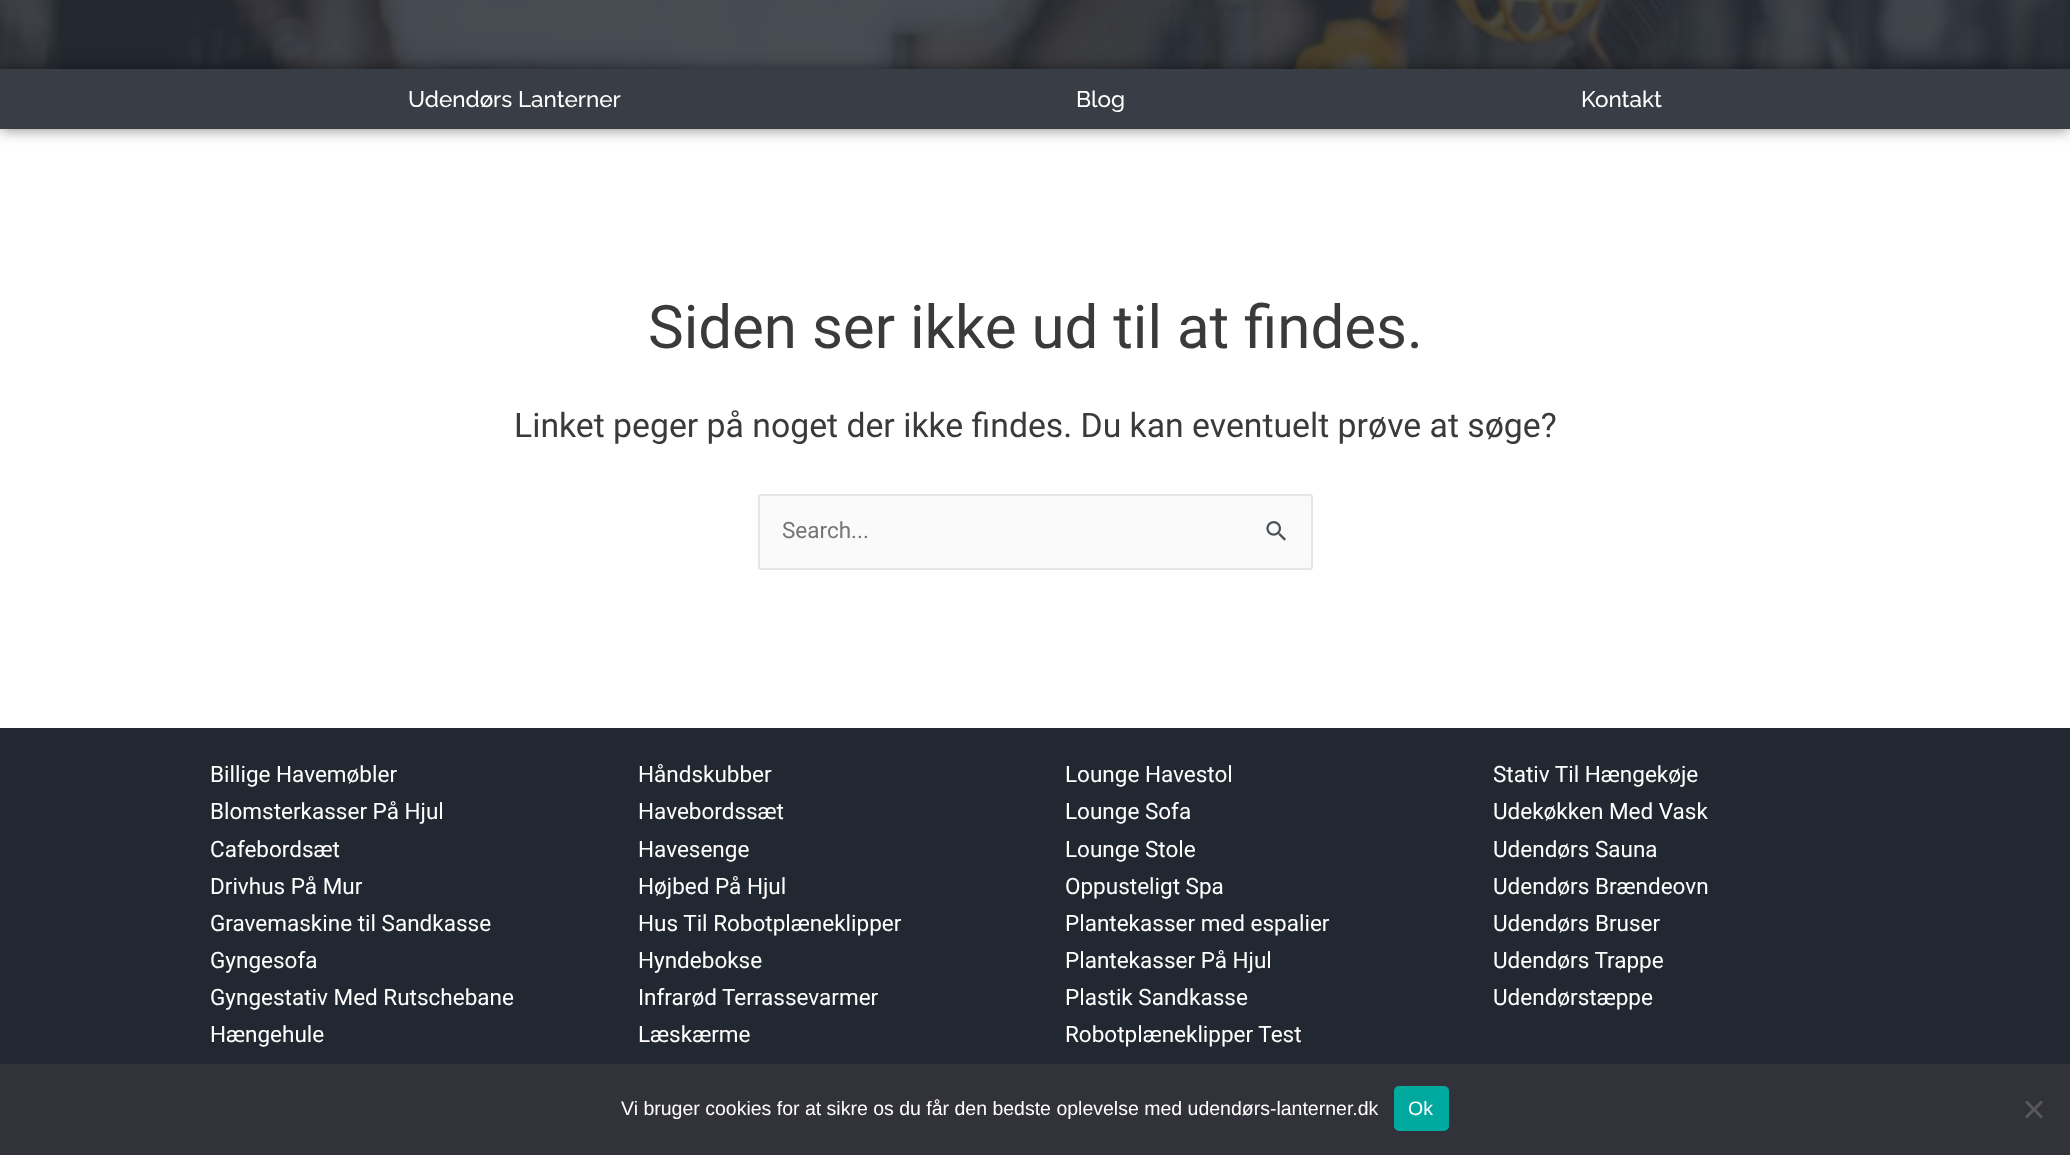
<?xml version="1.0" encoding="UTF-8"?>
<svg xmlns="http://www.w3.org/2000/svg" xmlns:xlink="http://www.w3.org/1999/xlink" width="2070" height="1155">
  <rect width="100%" height="100%" fill="#ffffff" />
  <image x="0" y="0" width="2070" height="69" xlink:href="image1.png" />
  <rect y="69" width="2070" height="60" fill="#000000" fill-opacity="0.5" filter="blur(7.5px)" />
  <rect y="69" width="2070" height="60" fill="#393e46" />
  <rect x="759" y="495" width="553" height="74" rx="2" fill="#fafafa" stroke="#e5e5e5" stroke-width="2" />
  <image x="1266" y="521" width="20" height="20" xlink:href="image2.png" />
  <rect y="728" width="2070" height="336" fill="#222831" />
  <rect y="1064" width="2070" height="91" fill="#32323a" />
  <rect x="1394" y="1086" width="55" height="45" rx="5" fill="#00a99d" />
  <path d="M 2041 1100.5 l 2 2 l -16 16 l -2 -2 z" fill="#59595d" />
  <path d="M 2025 1102.5 l 2 -2 l 16 16 l -2 2 z" fill="#59595d" />
  <text x="408" y="107" style="font-family: Raleway; font-size: 22.5px; font-weight: 500; fill: #ffffff">Udendørs Lanterner</text>
  <text x="1076" y="107" style="font-family: Raleway; font-size: 22.5px; font-weight: 500; fill: #ffffff">Blog</text>
  <text x="1581" y="107" style="font-family: Raleway; font-size: 22.5px; font-weight: 500; fill: #ffffff">Kontakt</text>
  <text x="648" y="348" style="font-family: Roboto; font-size: 60px; fill: #3a3a3a">Siden ser ikke ud til at findes.</text>
  <text x="514" y="437" style="font-family: Roboto; font-size: 33.75px; fill: #3a3a3a">Linket peger på noget der ikke findes. Du kan eventuelt prøve at søge?</text>
  <text x="782" y="538" style="font-family: Roboto; font-size: 22.5px; fill: #757575">Search...</text>
  <text x="210" y="782" style="font-family: Roboto; font-size: 22.5px; fill: #ffffff">Billige Havemøbler</text>
  <text x="210" y="819" style="font-family: Roboto; font-size: 22.5px; fill: #ffffff">Blomsterkasser På Hjul</text>
  <text x="210" y="857" style="font-family: Roboto; font-size: 22.5px; fill: #ffffff">Cafebordsæt</text>
  <text x="210" y="894" style="font-family: Roboto; font-size: 22.5px; fill: #ffffff">Drivhus På Mur</text>
  <text x="210" y="931" style="font-family: Roboto; font-size: 22.5px; fill: #ffffff">Gravemaskine til Sandkasse</text>
  <text x="210" y="968" style="font-family: Roboto; font-size: 22.5px; fill: #ffffff">Gyngesofa</text>
  <text x="210" y="1005" style="font-family: Roboto; font-size: 22.5px; fill: #ffffff">Gyngestativ Med Rutschebane</text>
  <text x="210" y="1042" style="font-family: Roboto; font-size: 22.5px; fill: #ffffff">Hængehule</text>
  <text x="638" y="782" style="font-family: Roboto; font-size: 22.5px; fill: #ffffff">Håndskubber</text>
  <text x="638" y="819" style="font-family: Roboto; font-size: 22.5px; fill: #ffffff">Havebordssæt</text>
  <text x="638" y="857" style="font-family: Roboto; font-size: 22.5px; fill: #ffffff">Havesenge</text>
  <text x="638" y="894" style="font-family: Roboto; font-size: 22.5px; fill: #ffffff">Højbed På Hjul</text>
  <text x="638" y="931" style="font-family: Roboto; font-size: 22.5px; fill: #ffffff">Hus Til Robotplæneklipper</text>
  <text x="638" y="968" style="font-family: Roboto; font-size: 22.5px; fill: #ffffff">Hyndebokse</text>
  <text x="638" y="1005" style="font-family: Roboto; font-size: 22.5px; fill: #ffffff">Infrarød Terrassevarmer</text>
  <text x="638" y="1042" style="font-family: Roboto; font-size: 22.5px; fill: #ffffff">Læskærme</text>
  <text x="1065" y="782" style="font-family: Roboto; font-size: 22.5px; fill: #ffffff">Lounge Havestol</text>
  <text x="1065" y="819" style="font-family: Roboto; font-size: 22.5px; fill: #ffffff">Lounge Sofa</text>
  <text x="1065" y="857" style="font-family: Roboto; font-size: 22.5px; fill: #ffffff">Lounge Stole</text>
  <text x="1065" y="894" style="font-family: Roboto; font-size: 22.5px; fill: #ffffff">Oppusteligt Spa</text>
  <text x="1065" y="931" style="font-family: Roboto; font-size: 22.5px; fill: #ffffff">Plantekasser med espalier</text>
  <text x="1065" y="968" style="font-family: Roboto; font-size: 22.5px; fill: #ffffff">Plantekasser På Hjul</text>
  <text x="1065" y="1005" style="font-family: Roboto; font-size: 22.5px; fill: #ffffff">Plastik Sandkasse</text>
  <text x="1065" y="1042" style="font-family: Roboto; font-size: 22.5px; fill: #ffffff">Robotplæneklipper Test</text>
  <text x="1493" y="782" style="font-family: Roboto; font-size: 22.5px; fill: #ffffff">Stativ Til Hængekøje</text>
  <text x="1493" y="819" style="font-family: Roboto; font-size: 22.5px; fill: #ffffff">Udekøkken Med Vask</text>
  <text x="1493" y="857" style="font-family: Roboto; font-size: 22.5px; fill: #ffffff">Udendørs Sauna</text>
  <text x="1493" y="894" style="font-family: Roboto; font-size: 22.5px; fill: #ffffff">Udendørs Brændeovn</text>
  <text x="1493" y="931" style="font-family: Roboto; font-size: 22.5px; fill: #ffffff">Udendørs Bruser</text>
  <text x="1493" y="968" style="font-family: Roboto; font-size: 22.5px; fill: #ffffff">Udendørs Trappe</text>
  <text x="1493" y="1005" style="font-family: Roboto; font-size: 22.5px; fill: #ffffff">Udendørstæppe</text>
  <text x="621" y="1115" style="font-family: Liberation Sans; font-size: 19.5px; fill: #ffffff">Vi bruger cookies for at sikre os du får den bedste oplevelse med udendørs-lanterner.dk</text>
  <text x="1408" y="1115" style="font-family: Liberation Sans; font-size: 19.5px; fill: #ffffff">Ok</text>
</svg>
